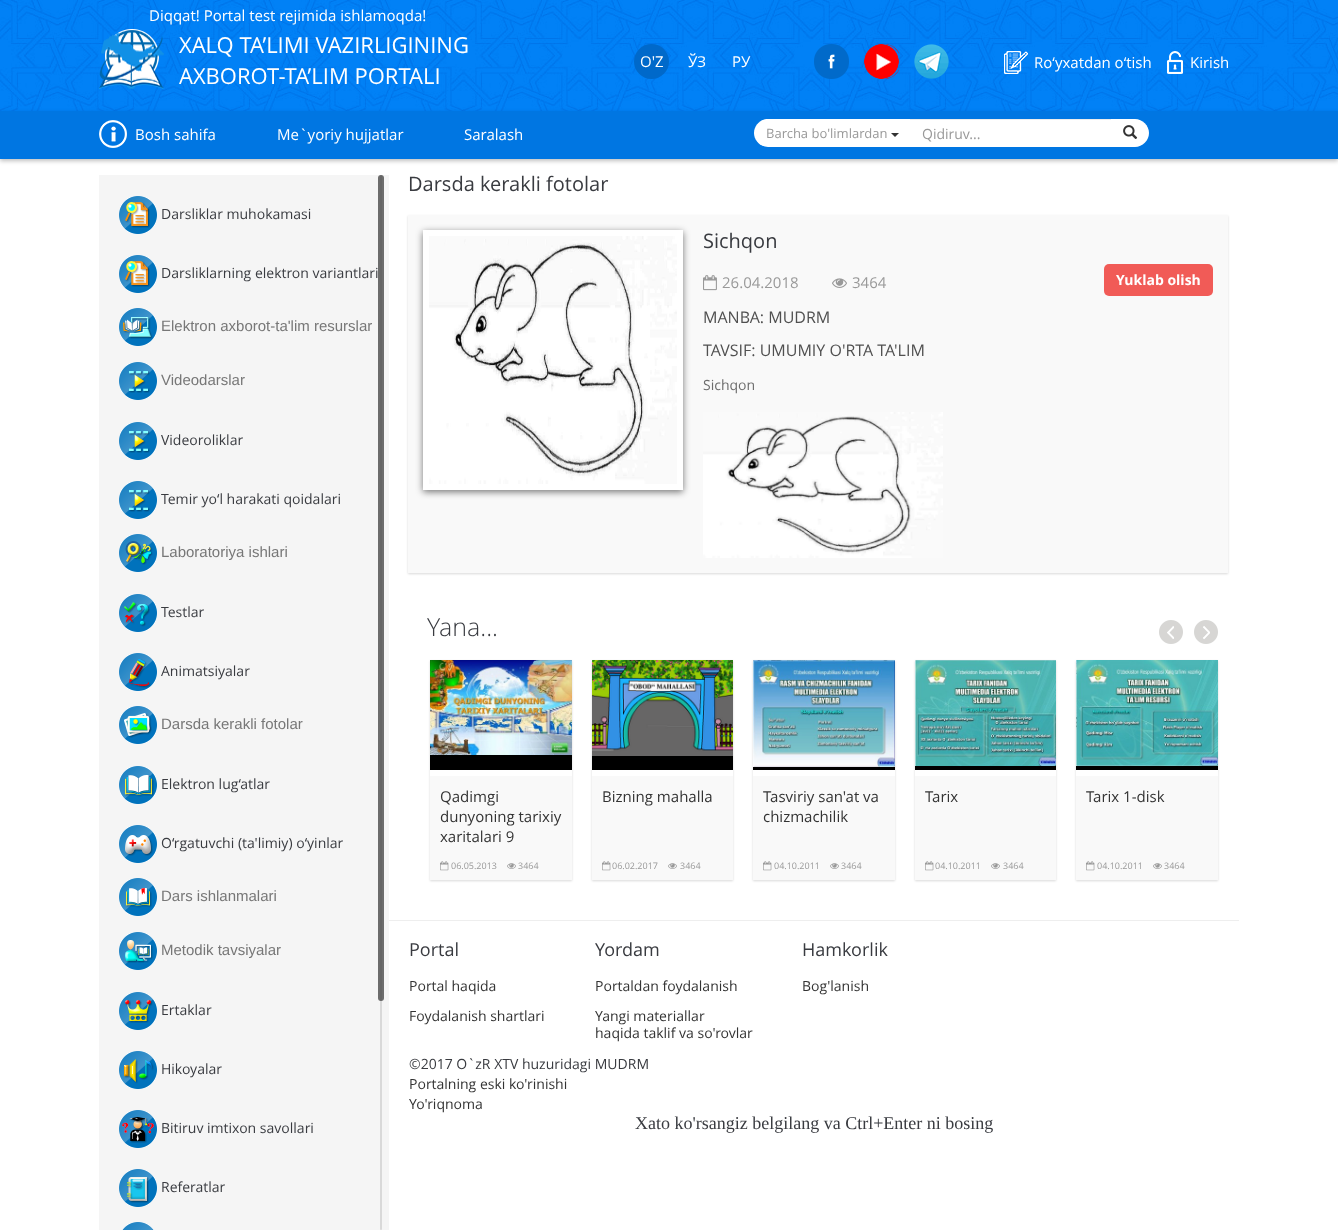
<?xml version="1.0" encoding="UTF-8"?>
<svg xmlns="http://www.w3.org/2000/svg" xmlns:xlink="http://www.w3.org/1999/xlink" width="1338" height="1230">
  <defs>
    <clipPath id="clip1"><path d="M 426 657 h 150 v 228 h -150 z m 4 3 h 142 v 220 h -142 z" clip-rule="evenodd" /></clipPath>
    <clipPath id="clip2"><path d="M 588 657 h 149 v 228 h -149 z m 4 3 h 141 v 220 h -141 z" clip-rule="evenodd" /></clipPath>
    <clipPath id="clip3"><path d="M 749 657 h 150 v 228 h -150 z m 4 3 h 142 v 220 h -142 z" clip-rule="evenodd" /></clipPath>
    <clipPath id="clip4"><path d="M 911 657 h 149 v 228 h -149 z m 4 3 h 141 v 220 h -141 z" clip-rule="evenodd" /></clipPath>
    <clipPath id="clip5"><path d="M 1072 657 h 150 v 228 h -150 z m 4 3 h 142 v 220 h -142 z" clip-rule="evenodd" /></clipPath>
  </defs>
  <rect width="100%" height="100%" fill="#ffffff" />
  <image x="0" y="0" width="1338" height="111" xlink:href="image1.png" />
  <image x="99" y="29" width="65" height="60" xlink:href="image2.png" />
  <circle cx="651.5" cy="61.5" r="17.5" fill="#0069ca" />
  <image x="814" y="44" width="35" height="35" xlink:href="image3.png" />
  <image x="864" y="44" width="35" height="35" xlink:href="image4.png" />
  <image x="914" y="44" width="35" height="35" xlink:href="image5.png" />
  <image x="1004" y="51" width="24" height="23" xlink:href="image6.png" />
  <image x="1167" y="51" width="16" height="23" xlink:href="image7.png" />
  <rect y="113" width="1338" height="48" fill="#000000" fill-opacity="0.25" filter="blur(2px)" />
  <rect y="111" width="1338" height="48" fill="#0076e2" />
  <image x="99" y="120" width="28" height="28" xlink:href="image8.png" />
  <path d="M 768 119 h 143 v 28 h -143 c -7.5 0 -14 -6.5 -14 -14 c 0 -7.5 6.5 -14 14 -14 z" fill="#ffffff" />
  <path d="M 891 133 h 8 l -4 4 z" fill="#333333" />
  <rect x="911" y="120" width="200" height="27" fill="#ffffff" />
  <rect x="910" y="119" width="202" height="1" fill="#ececec" />
  <path d="M 1111 119 h 24 c 7.5 0 14 6.5 14 14 c 0 7.5 -6.5 14 -14 14 h -24 z" fill="#ffffff" />
  <image x="1123" y="125" width="15" height="14" xlink:href="image9.png" />
  <rect x="99" y="175" width="290" height="1055" fill="#f5f5f5" />
  <image x="119" y="196" width="38" height="38" xlink:href="image10.png" />
  <image x="119" y="255" width="38" height="38" xlink:href="image10.png" />
  <image x="119" y="308" width="38" height="38" xlink:href="image11.png" />
  <image x="119" y="362" width="38" height="38" xlink:href="image12.png" />
  <image x="119" y="422" width="38" height="38" xlink:href="image12.png" />
  <image x="119" y="481" width="38" height="38" xlink:href="image12.png" />
  <image x="119" y="534" width="38" height="38" xlink:href="image13.png" />
  <image x="119" y="594" width="38" height="38" xlink:href="image14.png" />
  <image x="119" y="653" width="38" height="38" xlink:href="image15.png" />
  <image x="119" y="706" width="38" height="38" xlink:href="image16.png" />
  <image x="119" y="766" width="38" height="38" xlink:href="image17.png" />
  <image x="119" y="825" width="38" height="38" xlink:href="image18.png" />
  <image x="119" y="878" width="38" height="38" xlink:href="image19.png" />
  <image x="119" y="932" width="38" height="38" xlink:href="image20.png" />
  <image x="119" y="992" width="38" height="38" xlink:href="image21.png" />
  <image x="119" y="1051" width="38" height="38" xlink:href="image22.png" />
  <image x="119" y="1110" width="38" height="38" xlink:href="image23.png" />
  <image x="119" y="1169" width="38" height="38" xlink:href="image24.png" />
  <image x="122" y="1222" width="32" height="8" xlink:href="image25.png" />
  <rect x="380" y="175" width="2" height="1055" rx="1" fill="#d9d9d9" />
  <rect x="378" y="175" width="6" height="826" rx="3" fill="#3d3d3d" fill-opacity="0.75" />
  <rect x="408" y="216" width="820" height="358" fill="#000000" fill-opacity="0.15" filter="blur(1px)" />
  <rect x="408" y="215" width="820" height="358" fill="#f9f9f9" />
  <rect x="423" y="232" width="260" height="260" fill="#000000" fill-opacity="0.53" filter="blur(3.5px)" />
  <rect x="426" y="233" width="254" height="254" fill="none" stroke="#ffffff" stroke-width="6" />
  <image x="429" y="236" width="248" height="248" xlink:href="image26.png" />
  <image x="703" y="275" width="14" height="16" xlink:href="image27.png" />
  <image x="832" y="278" width="15" height="10" xlink:href="image28.png" />
  <rect x="1104" y="264" width="109" height="32" rx="5" fill="#f15b57" />
  <image x="703" y="412" width="240" height="146" xlink:href="image29.png" />
  <image x="1159" y="620" width="24" height="24" xlink:href="image30.png" />
  <image x="1194" y="620" width="24" height="24" xlink:href="image31.png" />
  <g clip-path="url(#clip1)">
    <rect x="430" y="661" width="142" height="220" fill="#000000" fill-opacity="0.15" filter="blur(1px)" />
  </g>
  <rect x="430" y="755" width="142" height="15" fill="#000000" />
  <image x="430" y="660" width="142" height="95" xlink:href="image32.png" />
  <rect x="430" y="776" width="142" height="104" fill="#f9f9f9" />
  <image x="440" y="861" width="9" height="10" xlink:href="image33.png" />
  <image x="507" y="863" width="9" height="6" xlink:href="image34.png" />
  <g clip-path="url(#clip2)">
    <rect x="592" y="661" width="141" height="220" fill="#000000" fill-opacity="0.15" filter="blur(1px)" />
  </g>
  <rect x="592" y="756" width="141" height="14" fill="#000000" />
  <image x="592" y="660" width="141" height="96" xlink:href="image35.png" />
  <rect x="592" y="776" width="141" height="104" fill="#f9f9f9" />
  <image x="602" y="861" width="9" height="10" xlink:href="image33.png" />
  <image x="668" y="863" width="9" height="6" xlink:href="image34.png" />
  <g clip-path="url(#clip3)">
    <rect x="753" y="661" width="142" height="220" fill="#000000" fill-opacity="0.15" filter="blur(1px)" />
  </g>
  <rect x="753" y="767" width="142" height="3" fill="#000000" />
  <image x="753" y="660" width="142" height="107" xlink:href="image36.png" />
  <rect x="753" y="776" width="142" height="104" fill="#f9f9f9" />
  <image x="763" y="861" width="9" height="10" xlink:href="image33.png" />
  <image x="830" y="863" width="9" height="6" xlink:href="image34.png" />
  <g clip-path="url(#clip4)">
    <rect x="915" y="661" width="141" height="220" fill="#000000" fill-opacity="0.15" filter="blur(1px)" />
  </g>
  <rect x="915" y="766" width="141" height="4" fill="#000000" />
  <image x="915" y="660" width="141" height="106" xlink:href="image37.png" />
  <rect x="915" y="776" width="141" height="104" fill="#f9f9f9" />
  <image x="925" y="861" width="9" height="10" xlink:href="image33.png" />
  <image x="991" y="863" width="9" height="6" xlink:href="image34.png" />
  <g clip-path="url(#clip5)">
    <rect x="1076" y="661" width="142" height="220" fill="#000000" fill-opacity="0.15" filter="blur(1px)" />
  </g>
  <rect x="1076" y="766" width="142" height="4" fill="#000000" />
  <image x="1076" y="660" width="142" height="106" xlink:href="image38.png" />
  <rect x="1076" y="776" width="142" height="104" fill="#f9f9f9" />
  <image x="1086" y="861" width="9" height="10" xlink:href="image33.png" />
  <image x="1153" y="863" width="9" height="6" xlink:href="image34.png" />
  <rect x="389" y="920" width="850" height="1" fill="#eeeeee" />
  <text x="149" y="21" style="font-family: Open Sans; font-size: 15px; fill: #ffffff">Diqqat! Portal test rejimida ishlamoqda!</text>
  <text x="179" y="53" style="font-family: Open Sans; font-size: 22px; fill: #ffffff">XALQ TA’LIMI VAZIRLIGINING</text>
  <text x="179" y="84" style="font-family: Open Sans; font-size: 22px; fill: #ffffff">AXBOROT-TA’LIM PORTALI</text>
  <text x="640" y="67" style="font-family: Open Sans; font-size: 15px; fill: #ffffff">O'Z</text>
  <text x="688" y="67" style="font-family: Open Sans; font-size: 15px; fill: #ffffff">ЎЗ</text>
  <text x="732" y="67" style="font-family: Open Sans; font-size: 15px; fill: #ffffff">РУ</text>
  <text x="1034" y="68" style="font-family: Open Sans; font-size: 15px; fill: #ffffff">Ro‘yxatdan o‘tish</text>
  <text x="1190" y="68" style="font-family: Open Sans; font-size: 15px; fill: #ffffff">Kirish</text>
  <text x="135" y="140" style="font-family: Open Sans; font-size: 15px; fill: #ffffff">Bosh sahifa</text>
  <text x="277" y="140" style="font-family: Open Sans; font-size: 15px; fill: #ffffff">Me`yoriy hujjatlar</text>
  <text x="464" y="140" style="font-family: Open Sans; font-size: 15px; fill: #ffffff">Saralash</text>
  <text x="766" y="138" style="font-family: Open Sans; font-size: 13px; fill: #999999">Barcha bo'limlardan</text>
  <text x="922" y="139" style="font-family: Open Sans; font-size: 14px; fill: #999999">Qidiruv...</text>
  <text x="161" y="219" style="font-family: Open Sans; font-size: 14px; fill: #393b40">Darsliklar muhokamasi</text>
  <text x="161" y="278" style="font-family: Open Sans; font-size: 14px; fill: #393b40">Darsliklarning elektron variantlari</text>
  <text x="161" y="331" style="font-family: Liberation Sans; font-size: 15px; fill: #777777">Elektron axborot-ta'lim resurslar</text>
  <text x="161" y="385" style="font-family: Liberation Sans; font-size: 15px; fill: #777777">Videodarslar</text>
  <text x="161" y="445" style="font-family: Open Sans; font-size: 14px; fill: #393b40">Videoroliklar</text>
  <text x="161" y="504" style="font-family: Open Sans; font-size: 14px; fill: #393b40">Temir yo‘l harakati qoidalari</text>
  <text x="161" y="557" style="font-family: Liberation Sans; font-size: 15px; fill: #777777">Laboratoriya ishlari</text>
  <text x="161" y="617" style="font-family: Open Sans; font-size: 14px; fill: #393b40">Testlar</text>
  <text x="161" y="676" style="font-family: Open Sans; font-size: 14px; fill: #393b40">Animatsiyalar</text>
  <text x="161" y="729" style="font-family: Liberation Sans; font-size: 15px; fill: #777777">Darsda kerakli fotolar</text>
  <text x="161" y="789" style="font-family: Open Sans; font-size: 14px; fill: #393b40">Elektron lug‘atlar</text>
  <text x="161" y="848" style="font-family: Open Sans; font-size: 14px; fill: #393b40">O‘rgatuvchi (ta'limiy) o‘yinlar</text>
  <text x="161" y="901" style="font-family: Liberation Sans; font-size: 15px; fill: #777777">Dars ishlanmalari</text>
  <text x="161" y="955" style="font-family: Liberation Sans; font-size: 15px; fill: #777777">Metodik tavsiyalar</text>
  <text x="161" y="1015" style="font-family: Open Sans; font-size: 14px; fill: #393b40">Ertaklar</text>
  <text x="161" y="1074" style="font-family: Open Sans; font-size: 14px; fill: #393b40">Hikoyalar</text>
  <text x="161" y="1133" style="font-family: Open Sans; font-size: 14px; fill: #393b40">Bitiruv imtixon savollari</text>
  <text x="161" y="1192" style="font-family: Open Sans; font-size: 14px; fill: #393b40">Referatlar</text>
  <text x="408" y="191" style="font-family: Open Sans; font-size: 20px; fill: #393b40">Darsda kerakli fotolar</text>
  <text x="703" y="248" style="font-family: Open Sans; font-size: 20px; fill: #393b40">Sichqon</text>
  <text x="722" y="288" style="font-family: Open Sans; font-size: 15px; fill: #999999">26.04.2018</text>
  <text x="852" y="288" style="font-family: Open Sans; font-size: 15px; fill: #999999">3464</text>
  <text x="1116" y="285" style="font-family: Open Sans; font-size: 14px; font-weight: bold; fill: #ffffff">Yuklab olish</text>
  <text x="703" y="323" style="font-family: Open Sans; font-size: 16px; fill: #505050">MANBA: MUDRM</text>
  <text x="703" y="356" style="font-family: Open Sans; font-size: 16px; fill: #505050">TAVSIF: UMUMIY O'RTA TA'LIM</text>
  <text x="703" y="390" style="font-family: Open Sans; font-size: 14px; fill: #6d6d6d">Sichqon</text>
  <text x="427" y="636" style="font-family: Open Sans; font-size: 25px; font-weight: 300; fill: #393b40">Yana...</text>
  <text x="440" y="802" style="font-family: Open Sans; font-size: 15px; fill: #333333">Qadimgi</text>
  <text x="440" y="822" style="font-family: Open Sans; font-size: 15px; fill: #333333">dunyoning tarixiy</text>
  <text x="440" y="842" style="font-family: Open Sans; font-size: 15px; fill: #333333">xaritalari 9</text>
  <text x="451" y="869" style="font-family: Open Sans; font-size: 9px; fill: #999999">06.05.2013</text>
  <text x="518" y="869" style="font-family: Open Sans; font-size: 9px; fill: #999999">3464</text>
  <text x="602" y="802" style="font-family: Open Sans; font-size: 15px; fill: #333333">Bizning mahalla</text>
  <text x="612" y="869" style="font-family: Open Sans; font-size: 9px; fill: #999999">06.02.2017</text>
  <text x="680" y="869" style="font-family: Open Sans; font-size: 9px; fill: #999999">3464</text>
  <text x="763" y="802" style="font-family: Open Sans; font-size: 15px; fill: #333333">Tasviriy san'at va</text>
  <text x="763" y="822" style="font-family: Open Sans; font-size: 15px; fill: #333333">chizmachilik</text>
  <text x="774" y="869" style="font-family: Open Sans; font-size: 9px; fill: #999999">04.10.2011</text>
  <text x="841" y="869" style="font-family: Open Sans; font-size: 9px; fill: #999999">3464</text>
  <text x="925" y="802" style="font-family: Open Sans; font-size: 15px; fill: #333333">Tarix</text>
  <text x="935" y="869" style="font-family: Open Sans; font-size: 9px; fill: #999999">04.10.2011</text>
  <text x="1003" y="869" style="font-family: Open Sans; font-size: 9px; fill: #999999">3464</text>
  <text x="1086" y="802" style="font-family: Open Sans; font-size: 15px; fill: #333333">Tarix 1-disk</text>
  <text x="1097" y="869" style="font-family: Open Sans; font-size: 9px; fill: #999999">04.10.2011</text>
  <text x="1164" y="869" style="font-family: Open Sans; font-size: 9px; fill: #999999">3464</text>
  <text x="409" y="956" style="font-family: Open Sans; font-size: 18px; fill: #393b40">Portal</text>
  <text x="409" y="991" style="font-family: Open Sans; font-size: 14px; fill: #333333">Portal haqida</text>
  <text x="409" y="1021" style="font-family: Open Sans; font-size: 14px; fill: #333333">Foydalanish shartlari</text>
  <text x="595" y="956" style="font-family: Open Sans; font-size: 18px; fill: #393b40">Yordam</text>
  <text x="595" y="991" style="font-family: Open Sans; font-size: 14px; fill: #333333">Portaldan foydalanish</text>
  <text x="595" y="1021" style="font-family: Open Sans; font-size: 14px; fill: #333333">Yangi materiallar</text>
  <text x="595" y="1038" style="font-family: Open Sans; font-size: 14px; fill: #333333">haqida taklif va so'rovlar</text>
  <text x="802" y="956" style="font-family: Open Sans; font-size: 18px; fill: #393b40">Hamkorlik</text>
  <text x="802" y="991" style="font-family: Open Sans; font-size: 14px; fill: #333333">Bog'lanish</text>
  <text x="409" y="1069" style="font-family: Open Sans; font-size: 14px; fill: #393b40">©2017 O`zR XTV huzuridagi MUDRM</text>
  <text x="409" y="1089" style="font-family: Open Sans; font-size: 14px; fill: #333333">Portalning eski ko'rinishi</text>
  <text x="409" y="1109" style="font-family: Open Sans; font-size: 14px; fill: #333333">Yo'riqnoma</text>
  <text x="635" y="1129" style="font-family: Liberation Serif; font-size: 18px; fill: #393b40">Xato ko'rsangiz belgilang va Ctrl+Enter ni bosing</text>
</svg>
